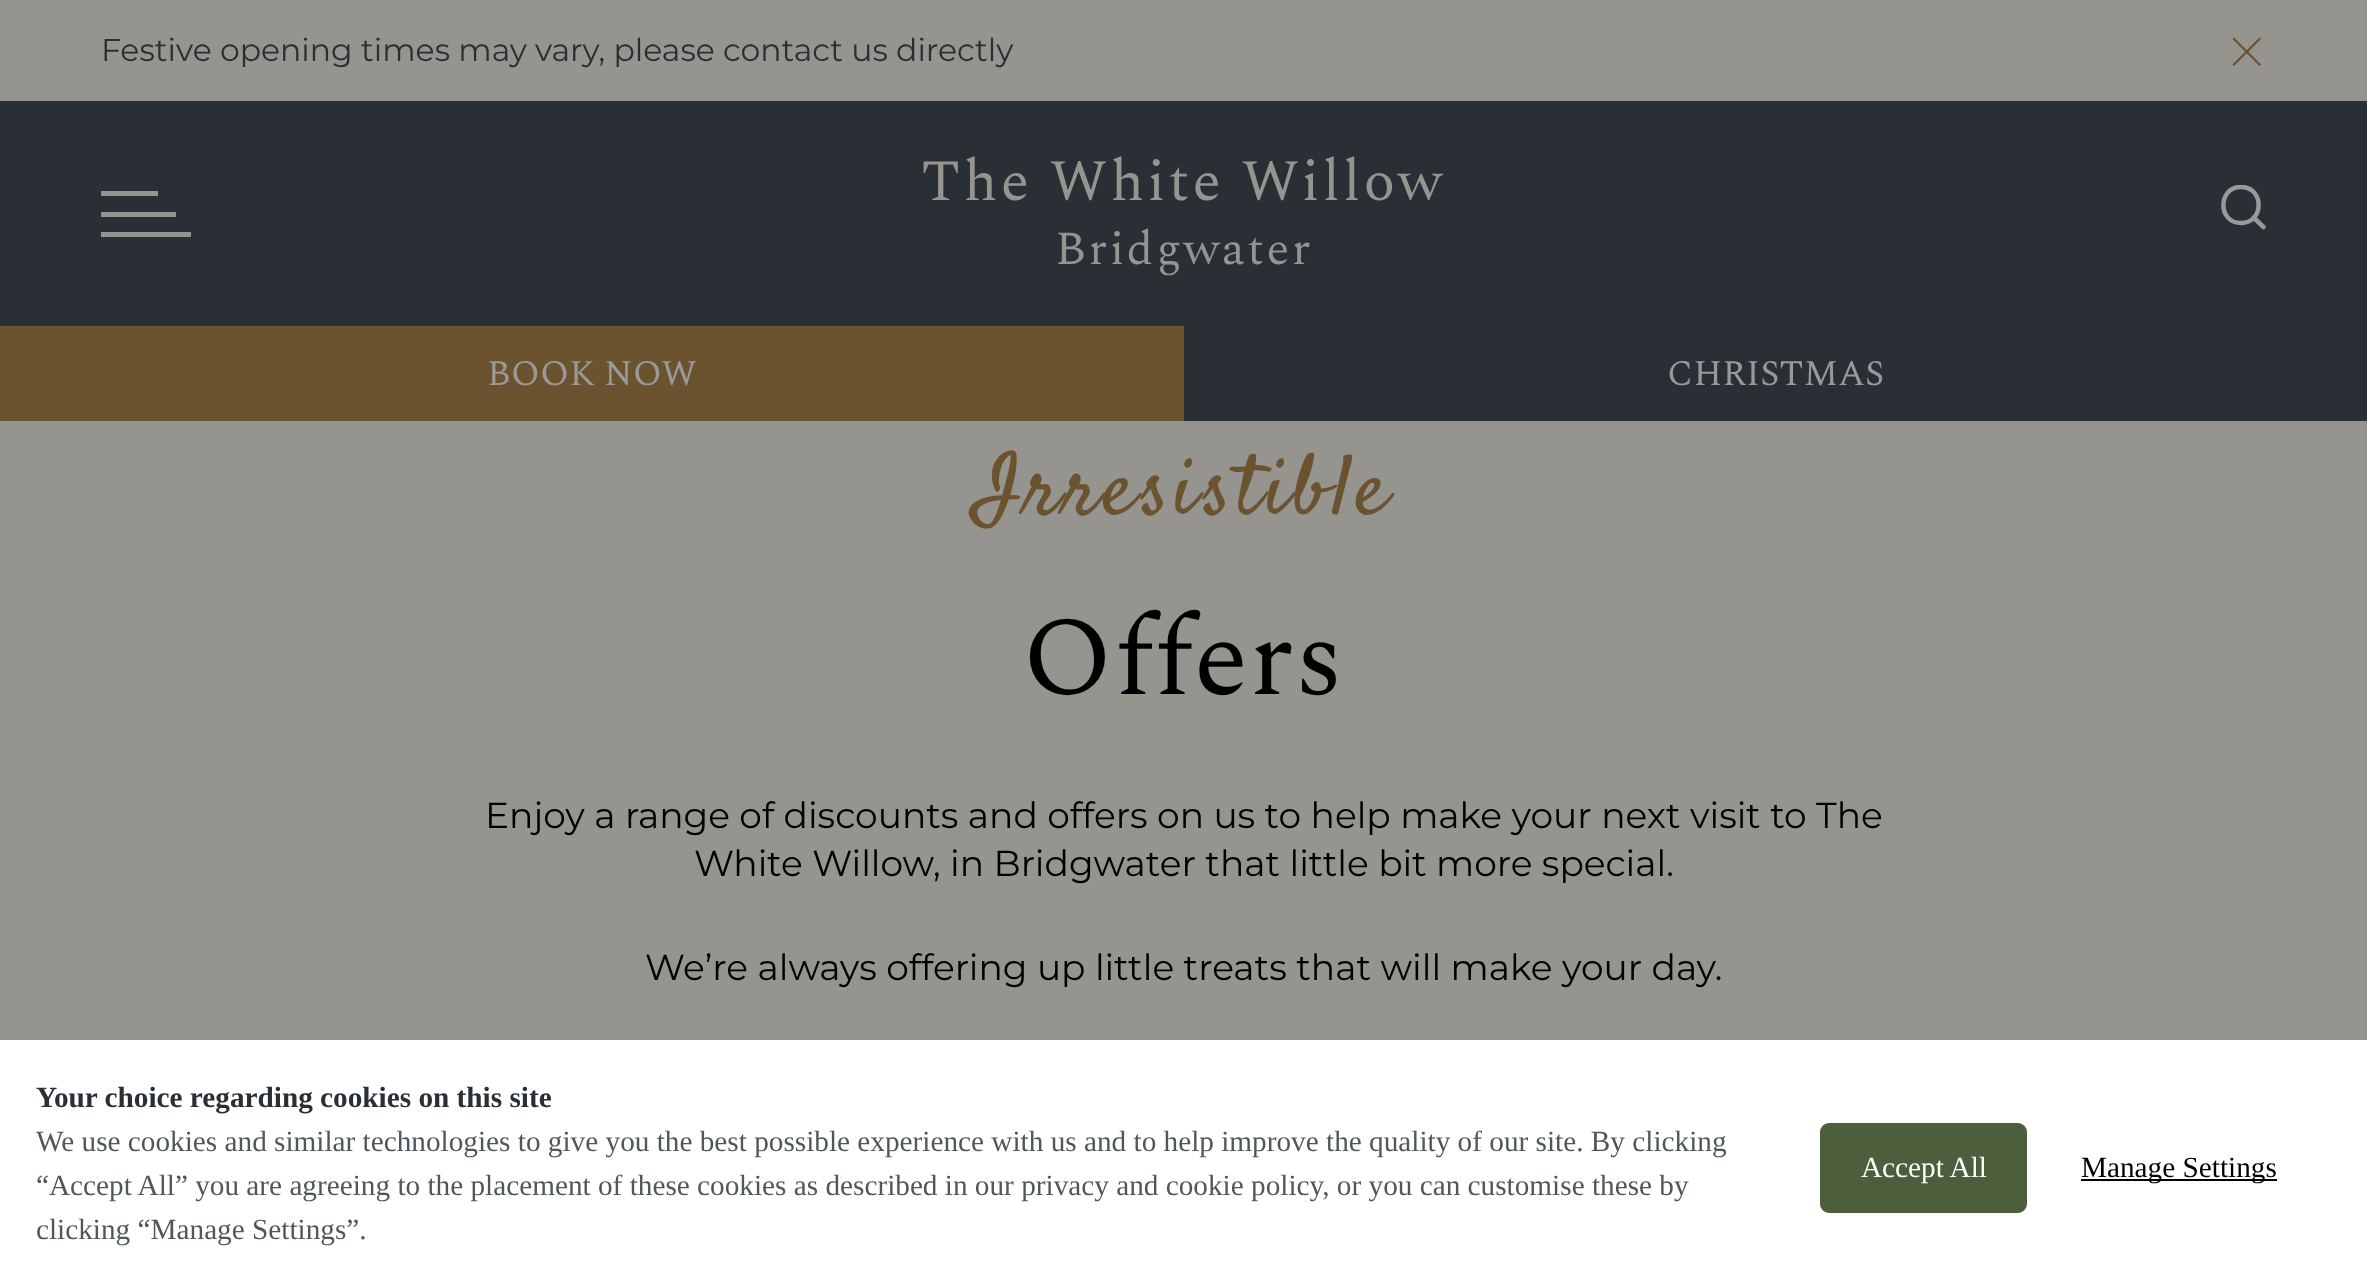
<?xml version="1.0" encoding="UTF-8"?>
<svg xmlns="http://www.w3.org/2000/svg" xmlns:xlink="http://www.w3.org/1999/xlink" width="2367" height="1285">
  <defs>
    <clipPath id="clip1"><rect x="2221" y="185" width="45" height="45" /></clipPath>
  </defs>
  <rect width="100%" height="100%" fill="#95948e" />
  <path d="M 2261 39 l -27 27 l -1.5 -1.5 l 27 -27 z" fill="#6b532f" />
  <path d="M 2259.5 66 l -27 -27 l 1.5 -1.5 l 27 27 z" fill="#6b532f" />
  <rect y="101" width="2367" height="225" fill="#292f34" />
  <rect x="101" y="212" width="75" height="5" fill="#95948e" />
  <rect x="101" y="191" width="57" height="5" fill="#95948e" />
  <rect x="101" y="232" width="90" height="5" fill="#95948e" />
  <g clip-path="url(#clip1)">
    <path d="M 2241 223 c 23.5 0 23.5 -36 0 -36 c -23.5 0 -23.5 36 0 36 z m 22.5 4 l -10 -9.5" fill="none" stroke="#999999" stroke-width="4.5" stroke-linecap="round" stroke-linejoin="round" />
  </g>
  <rect y="326" width="1184" height="95" fill="#6b532f" />
  <rect x="1184" y="326" width="1183" height="95" fill="#292f34" />
  <rect y="1040" width="2367" height="245" fill="#ffffff" />
  <rect x="1822.5" y="1125.5" width="202" height="85" rx="6.5" fill="#4d5e3c" stroke="#4d5e3c" stroke-width="5" />
  <rect x="2081" y="1179" width="196" height="2" fill="#000000" />
  <text x="101" y="61" style="font-family: Montserrat; font-size: 31.5px; fill: #292f34">Festive opening times may vary, please contact us directly</text>
  <text x="921" y="200" style="font-family: Spectral; font-size: 58.5px; letter-spacing: 3.1px; fill: #95948e">The White Willow</text>
  <text x="1055" y="264" style="font-family: Spectral; font-size: 47.25px; letter-spacing: 2.4px; fill: #95948e">Bridgwater</text>
  <text x="487" y="385" style="font-family: Spectral; font-size: 36px; fill: #999999">BOOK NOW</text>
  <text x="1667" y="385" style="font-family: Spectral; font-size: 36px; fill: #999999">CHRISTMAS</text>
  <text x="975" y="513" style="font-family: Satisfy; font-size: 85.5px; letter-spacing: 4.25px; fill: #6b532f">Irresistible</text>
  <text x="1022" y="694" style="font-family: Spectral; font-size: 112.5px; letter-spacing: 1px; fill: #000000">Offers</text>
  <text x="485" y="828" style="font-family: Montserrat; font-size: 36px; fill: #000000">Enjoy a range of discounts and offers on us to help make your next visit to The</text>
  <text x="694" y="876" style="font-family: Montserrat; font-size: 36px; fill: #000000">White Willow, in Bridgwater that little bit more special.</text>
  <text x="645" y="980" style="font-family: Montserrat; font-size: 36px; fill: #000000">We’re always offering up little treats that will make your day.</text>
  <text x="36" y="1107" style="font-family: Liberation Serif; font-size: 29.25px; font-weight: bold; fill: #292f34">Your choice regarding cookies on this site</text>
  <text x="36" y="1151" style="font-family: Liberation Serif; font-size: 29.25px; fill: #50575a">We use cookies and similar technologies to give you the best possible experience with us and to help improve the quality of our site. By clicking</text>
  <text x="36" y="1195" style="font-family: Liberation Serif; font-size: 29.25px; fill: #50575a">“Accept All” you are agreeing to the placement of these cookies as described in our privacy and cookie policy, or you can customise these by</text>
  <text x="36" y="1239" style="font-family: Liberation Serif; font-size: 29.25px; fill: #50575a">clicking “Manage Settings”.</text>
  <text x="1861" y="1177" style="font-family: Liberation Serif; font-size: 29.25px; fill: #ffffff">Accept All</text>
  <text x="2081" y="1177" style="font-family: Liberation Serif; font-size: 29.25px; fill: #000000">Manage Settings</text>
</svg>
